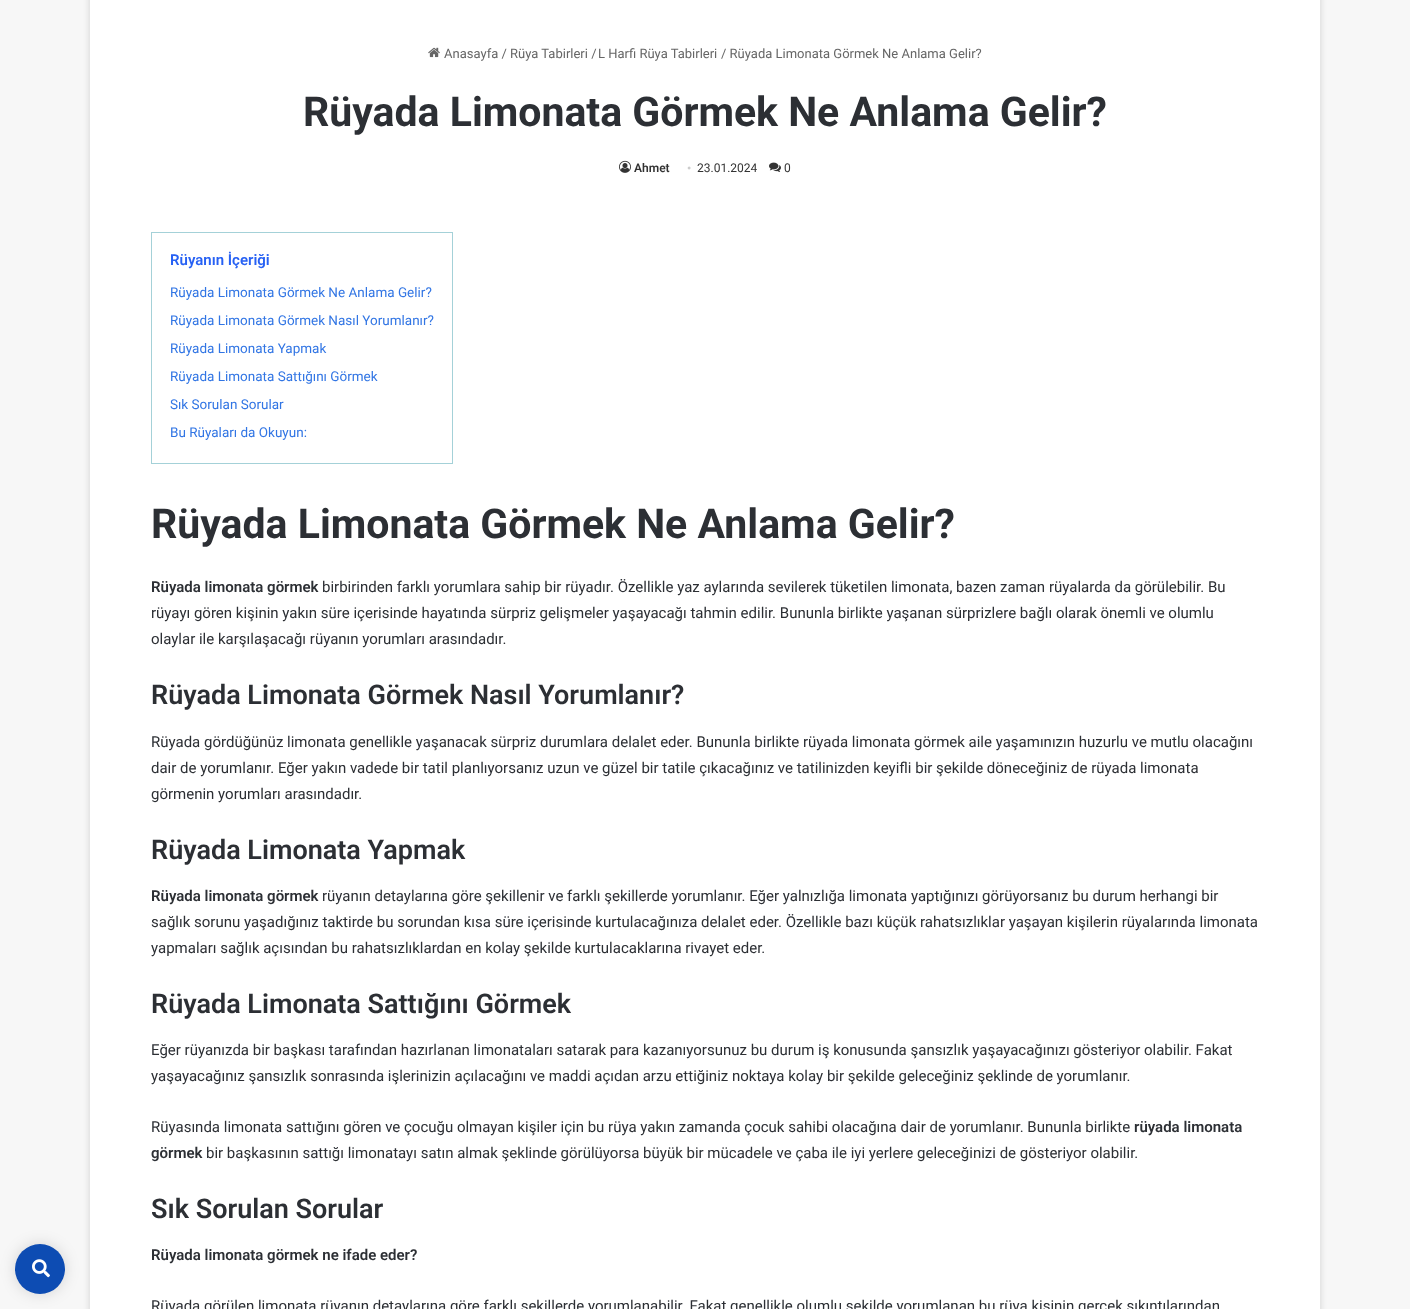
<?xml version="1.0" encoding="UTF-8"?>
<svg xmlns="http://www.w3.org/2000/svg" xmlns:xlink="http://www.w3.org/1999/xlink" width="1410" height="1309">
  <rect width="100%" height="100%" fill="#f7f7f7" />
  <rect x="90" y="-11" width="1230" height="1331" fill="#ababab" fill-opacity="0.5" filter="blur(3.5px)" />
  <rect x="90" width="1230" height="1309" fill="#ffffff" />
  <rect x="15" y="1244" width="50" height="50" rx="25" fill="#000000" fill-opacity="0.14" filter="blur(7.5px)" />
  <circle cx="40" cy="1269" r="25" fill="#0d4cb3" />
  <image x="32" y="1259" width="18" height="19" xlink:href="image1.png" />
  <image x="428" y="47" width="12" height="11" xlink:href="image2.png" />
  <image x="619" y="160" width="12" height="13" xlink:href="image3.png" />
  <image x="769" y="162" width="12" height="10" xlink:href="image4.png" />
  <rect x="151.5" y="232.5" width="301" height="231" fill="none" stroke="#a4d1d8" />
  <text x="444" y="58" style="font-family: Roboto; font-size: 13px; fill: #666666">Anasayfa / Rüya Tabirleri /</text>
  <text x="598" y="58" style="font-family: Roboto; font-size: 13px; fill: #666666">L Harfi Rüya Tabirleri</text>
  <text x="721" y="58" style="font-family: Roboto; font-size: 13px; fill: #666666">/ Rüyada Limonata Görmek Ne Anlama Gelir?</text>
  <text x="303" y="126" style="font-family: Roboto; font-size: 41px; font-weight: bold; fill: #2c2f34">Rüyada Limonata Görmek Ne Anlama Gelir?</text>
  <text x="634" y="172" style="font-family: Roboto; font-size: 12px; font-weight: 600; fill: #333333">Ahmet</text>
  <text x="687" y="172" style="font-family: Liberation Serif; font-size: 12px; fill: #cccccc">•</text>
  <text x="697" y="172" style="font-family: Roboto; font-size: 12px; fill: #333333">23.01.2024</text>
  <text x="784" y="172" style="font-family: Roboto; font-size: 12px; fill: #333333">0</text>
  <text x="170" y="265" style="font-family: Roboto; font-size: 15px; font-weight: 600; fill: #2761f4">Rüyanın İçeriği</text>
  <text x="170" y="297" style="font-family: Roboto; font-size: 13.5px; fill: #3175e4">Rüyada Limonata Görmek Ne Anlama Gelir?</text>
  <text x="170" y="325" style="font-family: Roboto; font-size: 13.5px; fill: #3175e4">Rüyada Limonata Görmek Nasıl Yorumlanır?</text>
  <text x="170" y="353" style="font-family: Roboto; font-size: 13.5px; fill: #3175e4">Rüyada Limonata Yapmak</text>
  <text x="170" y="381" style="font-family: Roboto; font-size: 13.5px; fill: #3175e4">Rüyada Limonata Sattığını Görmek</text>
  <text x="170" y="409" style="font-family: Roboto; font-size: 13.5px; fill: #3175e4">Sık Sorulan Sorular</text>
  <text x="170" y="437" style="font-family: Roboto; font-size: 13.5px; fill: #3175e4">Bu Rüyaları da Okuyun:</text>
  <text x="151" y="538" style="font-family: Roboto; font-size: 41px; font-weight: bold; fill: #2c2f34">Rüyada Limonata Görmek Ne Anlama Gelir?</text>
  <text x="151" y="592" style="font-family: Roboto; font-size: 15px; font-weight: 600; fill: #2c2f34">Rüyada limonata görmek</text>
  <text x="322" y="592" style="font-family: Roboto; font-size: 15px; fill: #2c2f34">birbirinden farklı yorumlara sahip bir rüyadır. Özellikle yaz aylarında sevilerek tüketilen limonata, bazen zaman rüyalarda da görülebilir. Bu</text>
  <text x="151" y="618" style="font-family: Roboto; font-size: 15px; fill: #2c2f34">rüyayı gören kişinin yakın süre içerisinde hayatında sürpriz gelişmeler yaşayacağı tahmin edilir. Bununla birlikte yaşanan sürprizlere bağlı olarak önemli ve olumlu</text>
  <text x="151" y="644" style="font-family: Roboto; font-size: 15px; fill: #2c2f34">olaylar ile karşılaşacağı rüyanın yorumları arasındadır.</text>
  <text x="151" y="704" style="font-family: Roboto; font-size: 27px; font-weight: 600; fill: #2c2f34">Rüyada Limonata Görmek Nasıl Yorumlanır?</text>
  <text x="151" y="747" style="font-family: Roboto; font-size: 15px; fill: #2c2f34">Rüyada gördüğünüz limonata genellikle yaşanacak sürpriz durumlara delalet eder. Bununla birlikte rüyada limonata görmek aile yaşamınızın huzurlu ve mutlu olacağını</text>
  <text x="151" y="773" style="font-family: Roboto; font-size: 15px; fill: #2c2f34">dair de yorumlanır. Eğer yakın vadede bir tatil planlıyorsanız uzun ve güzel bir tatile çıkacağınız ve tatilinizden keyifli bir şekilde döneceğiniz de rüyada limonata</text>
  <text x="151" y="799" style="font-family: Roboto; font-size: 15px; fill: #2c2f34">görmenin yorumları arasındadır.</text>
  <text x="151" y="859" style="font-family: Roboto; font-size: 27px; font-weight: 600; fill: #2c2f34">Rüyada Limonata Yapmak</text>
  <text x="151" y="901" style="font-family: Roboto; font-size: 15px; font-weight: 600; fill: #2c2f34">Rüyada limonata görmek</text>
  <text x="322" y="901" style="font-family: Roboto; font-size: 15px; fill: #2c2f34">rüyanın detaylarına göre şekillenir ve farklı şekillerde yorumlanır. Eğer yalnızlığa limonata yaptığınızı görüyorsanız bu durum herhangi bir</text>
  <text x="151" y="927" style="font-family: Roboto; font-size: 15px; fill: #2c2f34">sağlık sorunu yaşadığınız taktirde bu sorundan kısa süre içerisinde kurtulacağınıza delalet eder. Özellikle bazı küçük rahatsızlıklar yaşayan kişilerin rüyalarında limonata</text>
  <text x="151" y="953" style="font-family: Roboto; font-size: 15px; fill: #2c2f34">yapmaları sağlık açısından bu rahatsızlıklardan en kolay şekilde kurtulacaklarına rivayet eder.</text>
  <text x="151" y="1013" style="font-family: Roboto; font-size: 27px; font-weight: 600; fill: #2c2f34">Rüyada Limonata Sattığını Görmek</text>
  <text x="151" y="1055" style="font-family: Roboto; font-size: 15px; fill: #2c2f34">Eğer rüyanızda bir başkası tarafından hazırlanan limonataları satarak para kazanıyorsunuz bu durum iş konusunda şansızlık yaşayacağınızı gösteriyor olabilir. Fakat</text>
  <text x="151" y="1081" style="font-family: Roboto; font-size: 15px; fill: #2c2f34">yaşayacağınız şansızlık sonrasında işlerinizin açılacağını ve maddi açıdan arzu ettiğiniz noktaya kolay bir şekilde geleceğiniz şeklinde de yorumlanır.</text>
  <text x="151" y="1132" style="font-family: Roboto; font-size: 15px; fill: #2c2f34">Rüyasında limonata sattığını gören ve çocuğu olmayan kişiler için bu rüya yakın zamanda çocuk sahibi olacağına dair de yorumlanır. Bununla birlikte</text>
  <text x="1134" y="1132" style="font-family: Roboto; font-size: 15px; font-weight: 600; fill: #2c2f34">rüyada limonata</text>
  <text x="151" y="1158" style="font-family: Roboto; font-size: 15px; font-weight: 600; fill: #2c2f34">görmek</text>
  <text x="206" y="1158" style="font-family: Roboto; font-size: 15px; fill: #2c2f34">bir başkasının sattığı limonatayı satın almak şeklinde görülüyorsa büyük bir mücadele ve çaba ile iyi yerlere geleceğinizi de gösteriyor olabilir.</text>
  <text x="151" y="1218" style="font-family: Roboto; font-size: 27px; font-weight: 600; fill: #2c2f34">Sık Sorulan Sorular</text>
  <text x="151" y="1260" style="font-family: Roboto; font-size: 15px; font-weight: 600; fill: #2c2f34">Rüyada limonata görmek ne ifade eder?</text>
  <text x="151" y="1311" style="font-family: Roboto; font-size: 15px; fill: #2c2f34">Rüyada görülen limonata rüyanın detaylarına göre farklı şekillerde yorumlanabilir. Fakat genellikle olumlu şekilde yorumlanan bu rüya kişinin gerçek sıkıntılarından</text>
</svg>
